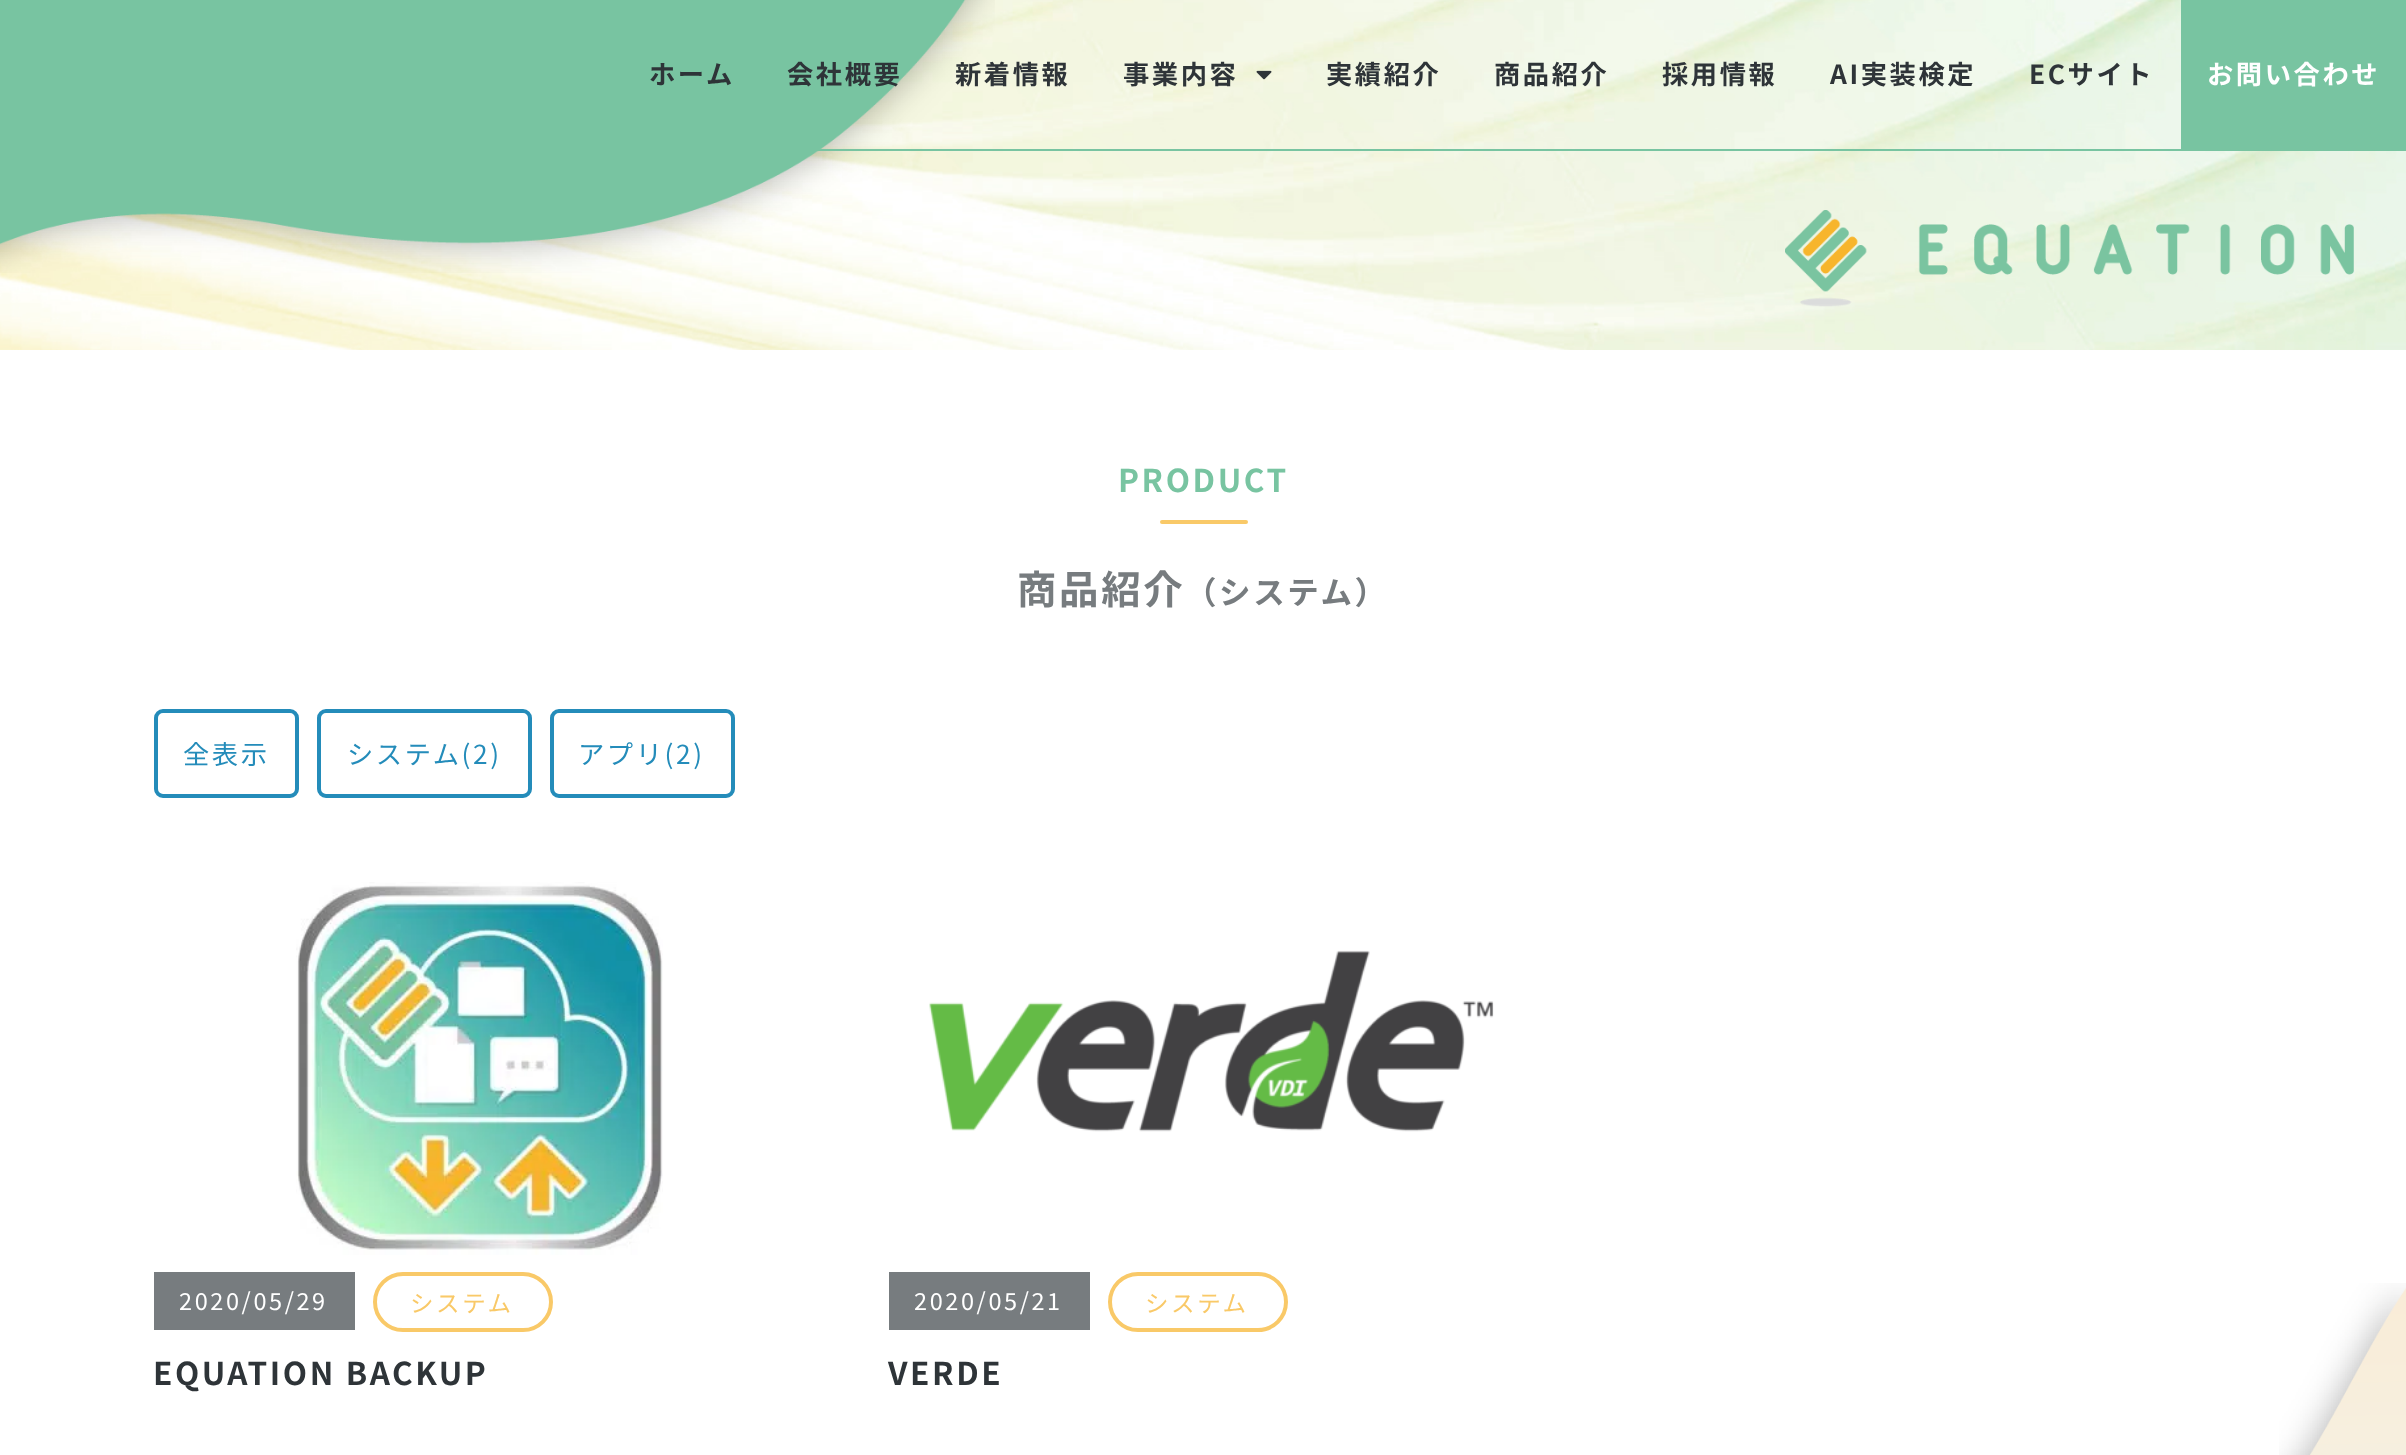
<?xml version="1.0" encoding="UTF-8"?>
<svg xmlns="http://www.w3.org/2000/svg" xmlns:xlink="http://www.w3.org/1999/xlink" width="2406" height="1455">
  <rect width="100%" height="100%" fill="#ffffff" />
  <image x="0" y="0" width="2406" height="350" xlink:href="image1.png" />
  <image x="0" y="0" width="995" height="273" xlink:href="image2.png" />
  <image x="1785" y="210" width="569" height="97" xlink:href="image3.png" />
  <rect x="817" y="149" width="1589" height="2" fill="#78c4a1" />
  <image x="1256" y="70" width="16" height="10" xlink:href="image4.png" />
  <rect x="2181" width="225" height="149" fill="#78c4a1" />
  <rect x="1160" y="520" width="88" height="4" rx="2" fill="#f9c968" />
  <rect x="156" y="711" width="141" height="85" rx="7" fill="none" stroke="#248cba" stroke-width="4" />
  <rect x="319" y="711" width="211" height="85" rx="7" fill="none" stroke="#248cba" stroke-width="4" />
  <rect x="552" y="711" width="181" height="85" rx="7" fill="none" stroke="#248cba" stroke-width="4" />
  <image x="296" y="882" width="367" height="373" xlink:href="image5.png" />
  <rect x="154" y="1272" width="201" height="58" fill="#777c7f" />
  <rect x="375" y="1274" width="176" height="56" rx="28" fill="none" stroke="#f9c968" stroke-width="4" />
  <image x="929" y="950" width="565" height="182" xlink:href="image6.png" />
  <rect x="889" y="1272" width="201" height="58" fill="#777c7f" />
  <rect x="1110" y="1274" width="176" height="56" rx="28" fill="none" stroke="#f9c968" stroke-width="4" />
  <image x="2279" y="1283" width="127" height="172" xlink:href="image7.png" />
  <text x="649" y="84" style="font-family: Noto Sans JP; font-size: 26.25px; font-weight: bold; letter-spacing: 2.6px; fill: #2e3438">ホーム</text>
  <text x="787" y="84" style="font-family: Noto Sans JP; font-size: 26.25px; font-weight: bold; letter-spacing: 2.6px; fill: #2e3438">会社概要</text>
  <text x="955" y="84" style="font-family: Noto Sans JP; font-size: 26.25px; font-weight: bold; letter-spacing: 2.6px; fill: #2e3438">新着情報</text>
  <text x="1123" y="84" style="font-family: Noto Sans JP; font-size: 26.25px; font-weight: bold; letter-spacing: 2.6px; fill: #2e3438">事業内容</text>
  <text x="1326" y="84" style="font-family: Noto Sans JP; font-size: 26.25px; font-weight: bold; letter-spacing: 2.6px; fill: #2e3438">実績紹介</text>
  <text x="1494" y="84" style="font-family: Noto Sans JP; font-size: 26.25px; font-weight: bold; letter-spacing: 2.6px; fill: #2e3438">商品紹介</text>
  <text x="1662" y="84" style="font-family: Noto Sans JP; font-size: 26.25px; font-weight: bold; letter-spacing: 2.6px; fill: #2e3438">採用情報</text>
  <text x="1830" y="84" style="font-family: Noto Sans JP; font-size: 26.25px; font-weight: bold; letter-spacing: 2.6px; fill: #2e3438">AI実装検定</text>
  <text x="2029" y="84" style="font-family: Noto Sans JP; font-size: 26.25px; font-weight: bold; letter-spacing: 2.6px; fill: #2e3438">ECサイト</text>
  <text x="2207" y="84" style="font-family: Noto Sans JP; font-size: 26.25px; font-weight: bold; letter-spacing: 2.6px; fill: #ffffff">お問い合わせ</text>
  <text x="1118" y="492" style="font-family: Noto Sans JP; font-size: 31.5px; font-weight: bold; letter-spacing: 2.6px; fill: #78c4a1">PRODUCT</text>
  <text x="1017" y="604" style="font-family: Noto Sans JP; font-size: 39.5px; font-weight: bold; letter-spacing: 2.6px; fill: #777c7f">商品紹介</text>
  <text x="1185" y="604" style="font-family: Noto Sans JP; font-size: 31.5px; font-weight: bold; letter-spacing: 2.6px; fill: #777c7f">（システム）</text>
  <text x="183" y="764" style="font-family: Noto Sans JP; font-size: 26.25px; letter-spacing: 2.6px; fill: #248cba">全表示</text>
  <text x="347" y="764" style="font-family: Noto Sans JP; font-size: 26.25px; letter-spacing: 2.6px; fill: #248cba">システム(2)</text>
  <text x="578" y="764" style="font-family: Noto Sans JP; font-size: 26.25px; letter-spacing: 2.6px; fill: #248cba">アプリ(2)</text>
  <text x="179" y="1310" style="font-family: Noto Sans JP; font-size: 23.5px; letter-spacing: 2.6px; fill: #ffffff">2020/05/29</text>
  <text x="410" y="1312" style="font-family: Noto Sans JP; font-size: 23.5px; letter-spacing: 2.6px; fill: #f9c968">システム</text>
  <text x="153" y="1385" style="font-family: Noto Sans JP; font-size: 31.5px; font-weight: bold; letter-spacing: 2.6px; fill: #2e3438">EQUATION BACKUP</text>
  <text x="914" y="1310" style="font-family: Noto Sans JP; font-size: 23.5px; letter-spacing: 2.6px; fill: #ffffff">2020/05/21</text>
  <text x="1145" y="1312" style="font-family: Noto Sans JP; font-size: 23.5px; letter-spacing: 2.6px; fill: #f9c968">システム</text>
  <text x="888" y="1385" style="font-family: Noto Sans JP; font-size: 31.5px; font-weight: bold; letter-spacing: 2.6px; fill: #2e3438">VERDE</text>
</svg>
